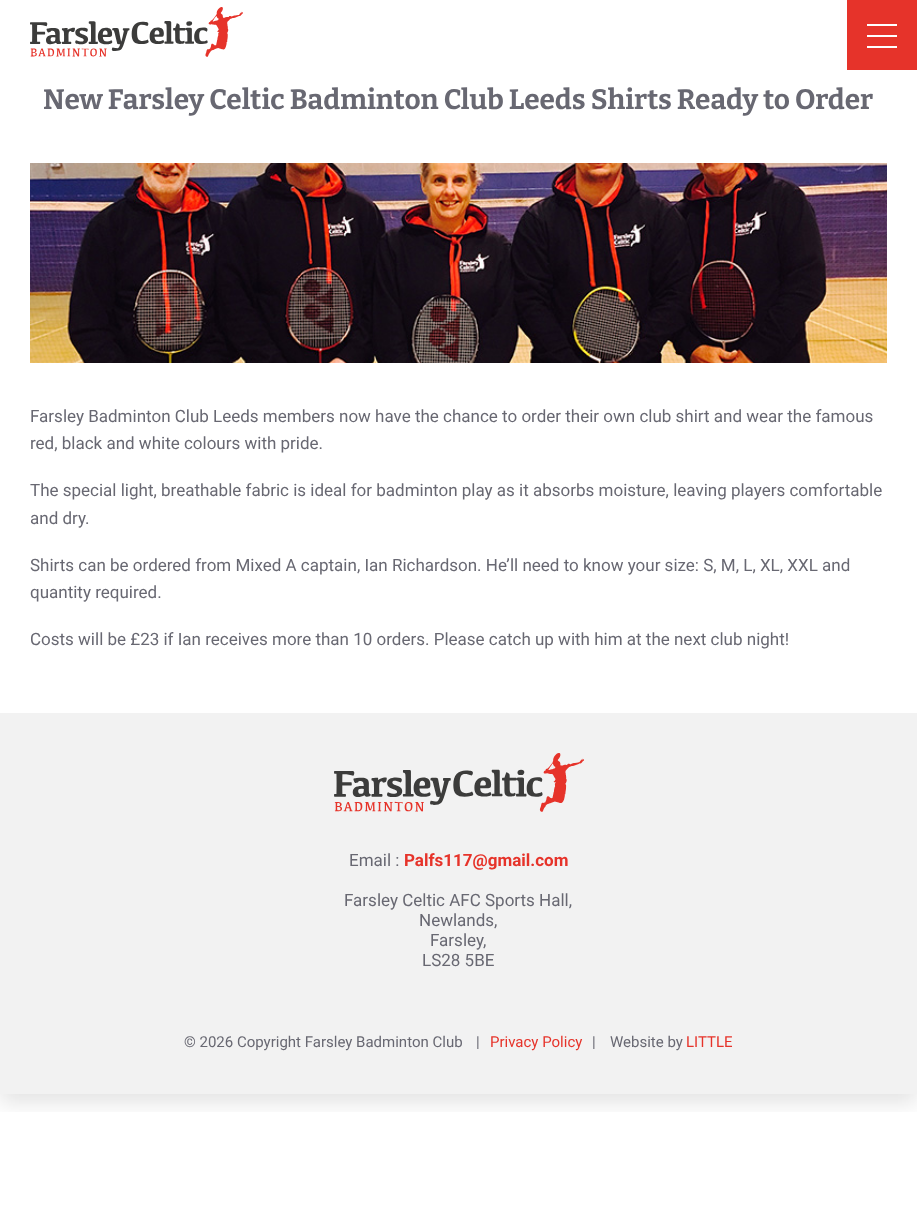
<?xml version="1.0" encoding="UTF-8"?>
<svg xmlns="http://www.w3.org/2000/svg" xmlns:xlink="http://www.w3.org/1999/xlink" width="917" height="1219">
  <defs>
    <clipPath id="clip1"><rect x="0" y="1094" width="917" height="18" /></clipPath>
  </defs>
  <rect width="100%" height="100%" fill="#ffffff" />
  <g clip-path="url(#clip1)">
    <rect y="10" width="917" height="1094" fill="#000000" fill-opacity="0.1" filter="blur(10px)" />
  </g>
  <image x="30" y="7" width="213" height="50" xlink:href="image1.png" />
  <rect x="847" width="70" height="70" fill="#e6332a" />
  <rect x="867" y="24" width="30" height="2" fill="#ffffff" />
  <rect x="867" y="35" width="30" height="2" fill="#ffffff" />
  <rect x="867" y="46" width="30" height="2" fill="#ffffff" />
  <image x="30" y="163" width="857" height="200" xlink:href="image2.png" />
  <rect y="713" width="917" height="381" fill="#f2f2f2" />
  <image x="334" y="753" width="250" height="59" xlink:href="image3.png" />
  <text x="43" y="109" style="font-family: Bitter; font-size: 28px; font-weight: 100; fill: #686872">New Farsley Celtic Badminton Club Leeds Shirts Ready to Order</text>
  <text x="30" y="422" style="font-family: Roboto; font-size: 17px; fill: #686872">Farsley Badminton Club Leeds members now have the chance to order their own club shirt and wear the famous</text>
  <text x="30" y="449" style="font-family: Roboto; font-size: 17px; fill: #686872">red, black and white colours with pride.</text>
  <text x="30" y="496" style="font-family: Roboto; font-size: 17px; fill: #686872">The special light, breathable fabric is ideal for badminton play as it absorbs moisture, leaving players comfortable</text>
  <text x="30" y="524" style="font-family: Roboto; font-size: 17px; fill: #686872">and dry.</text>
  <text x="30" y="571" style="font-family: Roboto; font-size: 17px; fill: #686872">Shirts can be ordered from Mixed A captain, Ian Richardson. He’ll need to know your size: S, M, L, XL, XXL and</text>
  <text x="30" y="598" style="font-family: Roboto; font-size: 17px; fill: #686872">quantity required.</text>
  <text x="30" y="645" style="font-family: Roboto; font-size: 17px; fill: #686872">Costs will be £23 if Ian receives more than 10 orders. Please catch up with him at the next club night!</text>
  <text x="349" y="866" style="font-family: Roboto; font-size: 17px; fill: #686872">Email :</text>
  <text x="404" y="866" style="font-family: Roboto; font-size: 17px; font-weight: bold; fill: #e6332a">Palfs117@gmail.com</text>
  <text x="344" y="906" style="font-family: Roboto; font-size: 17px; fill: #686872">Farsley Celtic AFC Sports Hall,</text>
  <text x="419" y="926" style="font-family: Roboto; font-size: 17px; fill: #686872">Newlands,</text>
  <text x="430" y="946" style="font-family: Roboto; font-size: 17px; fill: #686872">Farsley,</text>
  <text x="422" y="966" style="font-family: Roboto; font-size: 17px; fill: #686872">LS28 5BE</text>
  <text x="184" y="1047" style="font-family: Roboto; font-size: 15px; fill: #686872">© 2026 Copyright Farsley Badminton Club</text>
  <text x="476" y="1047" style="font-family: Roboto; font-size: 15px; fill: #686872">|</text>
  <text x="490" y="1047" style="font-family: Roboto; font-size: 15px; fill: #e6332a">Privacy Policy</text>
  <text x="592" y="1047" style="font-family: Roboto; font-size: 15px; fill: #686872">|</text>
  <text x="610" y="1047" style="font-family: Roboto; font-size: 15px; fill: #686872">Website by</text>
  <text x="686" y="1047" style="font-family: Roboto; font-size: 15px; fill: #e6332a">LITTLE</text>
</svg>
